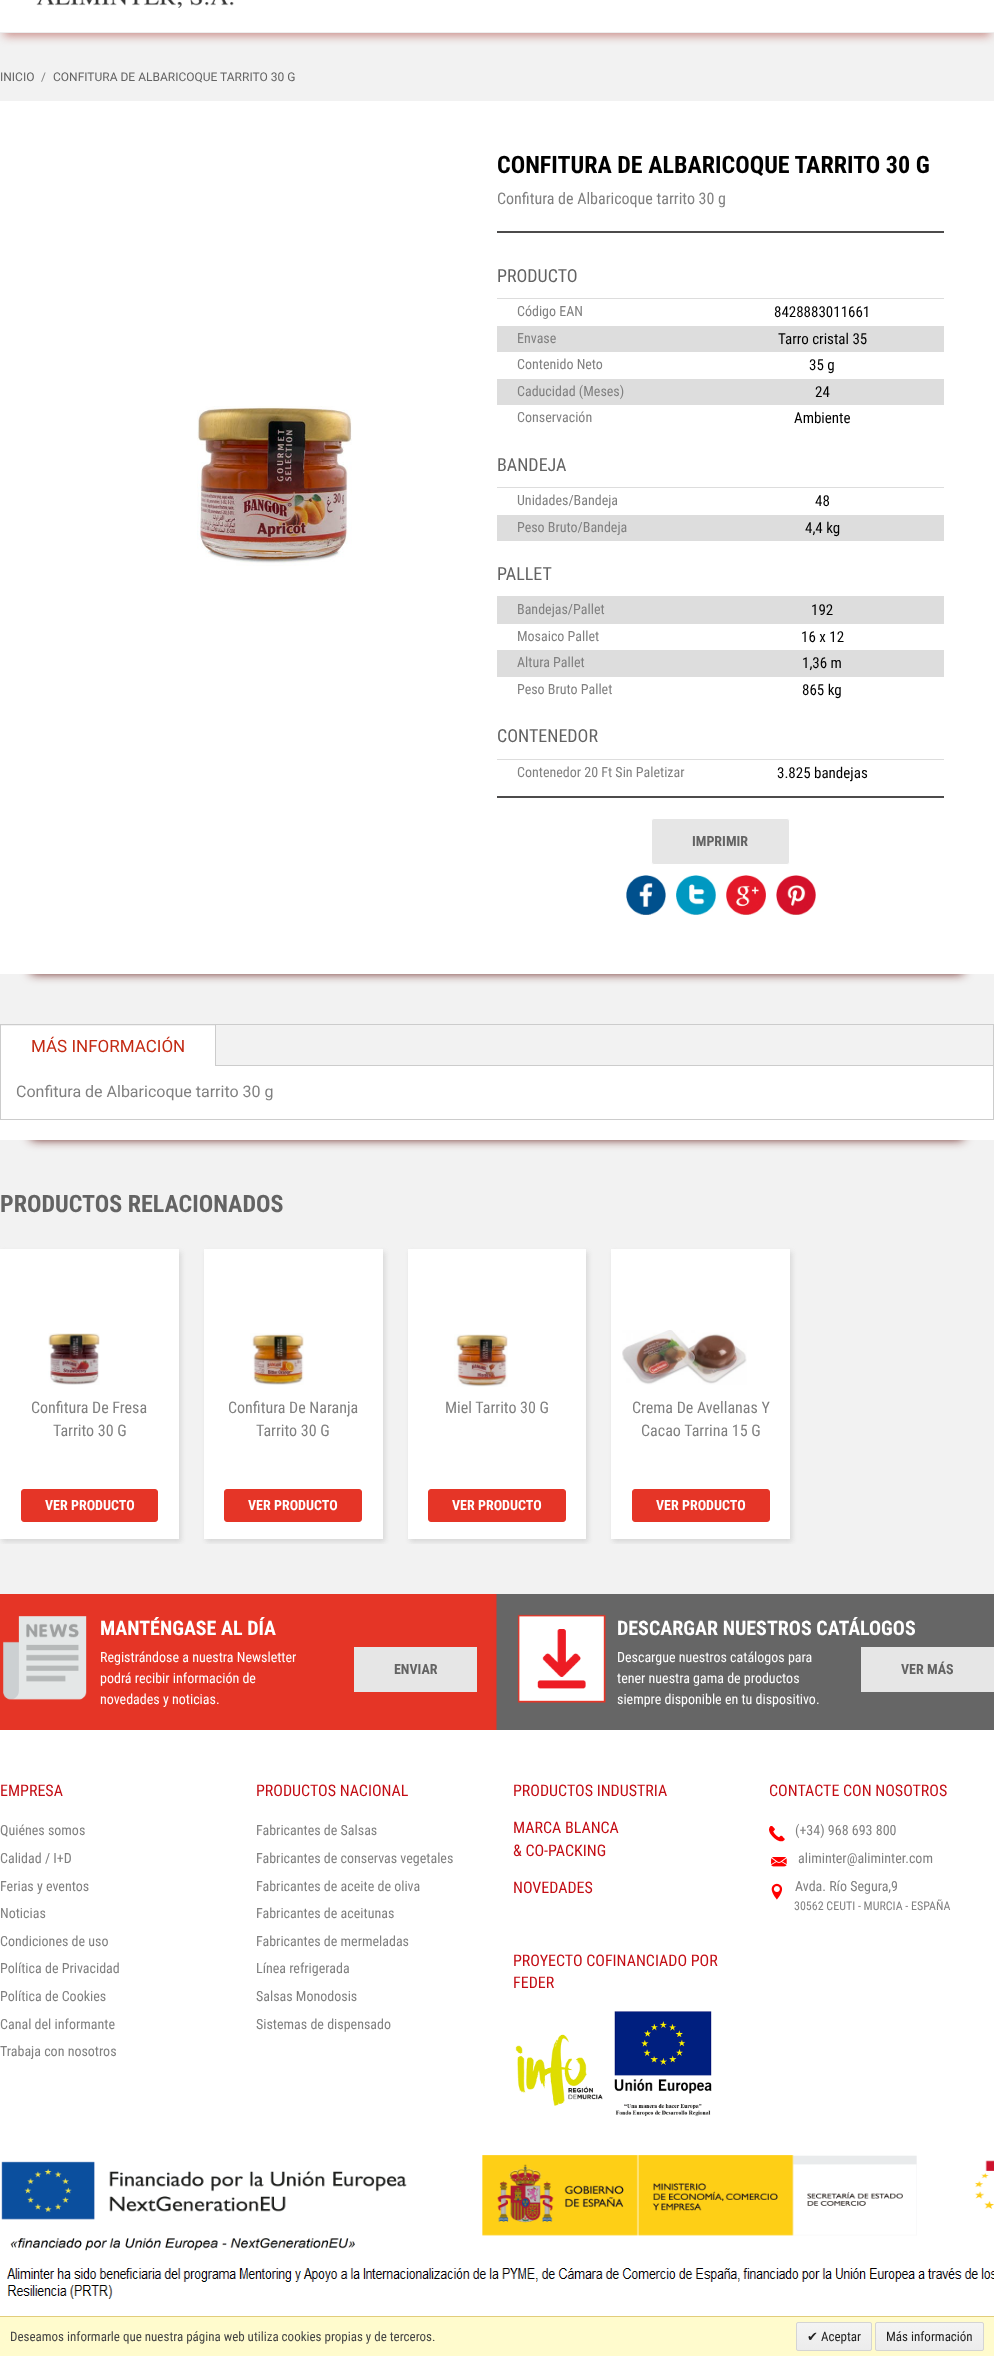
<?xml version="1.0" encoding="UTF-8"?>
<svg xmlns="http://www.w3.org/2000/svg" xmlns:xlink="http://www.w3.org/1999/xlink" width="994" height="2356">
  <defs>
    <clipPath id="clip1"><rect x="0" y="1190" width="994" height="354" /></clipPath>
    <clipPath id="clip2"><rect x="796" y="2322" width="76" height="29" rx="2" /></clipPath>
    <linearGradient id="g1" gradientUnits="userSpaceOnUse" x1="834" y1="2323" x2="834" y2="2350"><stop offset="0" stop-color="#f4f4f4" /><stop offset="1" stop-color="#ececec" /></linearGradient>
    <clipPath id="clip3"><rect x="875" y="2322" width="109" height="29" rx="2" /></clipPath>
    <linearGradient id="g2" gradientUnits="userSpaceOnUse" x1="930" y1="2323" x2="930" y2="2350"><stop offset="0" stop-color="#f4f4f4" /><stop offset="1" stop-color="#ececec" /></linearGradient>
  </defs>
  <rect width="100%" height="100%" fill="#f2f2f2" />
  <rect x="4" y="-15" width="986" height="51" fill="#cb908b" filter="blur(5px)" />
  <rect width="994" height="32" fill="#ffffff" />
  <rect y="32" width="994" height="1" fill="#eeeeee" />
  <image x="36" y="0" width="198" height="8" xlink:href="image1.png" />
  <rect x="31" y="162" width="932" height="811" fill="#580703" filter="blur(5.5px)" />
  <rect y="101" width="994" height="873" fill="#ffffff" />
  <image x="197" y="406" width="155" height="160" xlink:href="image2.png" />
  <rect x="497" y="231" width="447" height="2" fill="#4c4b4b" />
  <rect x="497" y="796" width="447" height="2" fill="#4c4b4b" />
  <rect x="497" y="298" width="447" height="1" fill="#dddddd" />
  <rect x="497" y="326" width="447" height="26" fill="#dddddd" />
  <rect x="497" y="379" width="447" height="26" fill="#dddddd" />
  <rect x="497" y="487" width="447" height="1" fill="#dddddd" />
  <rect x="497" y="515" width="447" height="26" fill="#dddddd" />
  <rect x="497" y="596" width="447" height="28" fill="#dddddd" />
  <rect x="497" y="650" width="447" height="27" fill="#dddddd" />
  <rect x="497" y="759" width="447" height="1" fill="#dddddd" />
  <rect x="651.5" y="818.5" width="138" height="46" rx="2.5" fill="#e6e6e6" stroke="#ffffff" />
  <image x="626" y="875" width="40" height="40" xlink:href="image3.png" />
  <image x="676" y="875" width="40" height="40" xlink:href="image4.png" />
  <image x="726" y="875" width="40" height="40" xlink:href="image5.png" />
  <image x="776" y="875" width="40" height="40" xlink:href="image6.png" />
  <rect x="31" y="1085" width="932" height="54" fill="#580703" filter="blur(5.5px)" />
  <rect y="1066" width="994" height="74" fill="#ffffff" />
  <rect x="0.5" y="1024.5" width="993" height="41" fill="none" stroke="#cccccc" />
  <rect x="215" y="1025" width="1" height="40" fill="#cccccc" />
  <rect x="1" y="1026" width="214" height="40" fill="#ffffff" />
  <rect x="993" y="1066" width="1" height="54" fill="#cccccc" />
  <rect y="1119" width="994" height="1" fill="#cccccc" />
  <rect y="1066" width="1" height="54" fill="#cccccc" />
  <g clip-path="url(#clip1)">
    <rect x="2" y="1252" width="179" height="290" fill="#d7d7d7" filter="blur(2.5px)" />
  </g>
  <rect y="1249" width="179" height="290" fill="#ffffff" />
  <image x="48" y="1333" width="52" height="52" xlink:href="image7.png" />
  <rect x="21.5" y="1489.5" width="136" height="32" rx="2.5" fill="#e53527" stroke="#e53527" />
  <g clip-path="url(#clip1)">
    <rect x="206" y="1252" width="179" height="290" fill="#d7d7d7" filter="blur(2.5px)" />
  </g>
  <rect x="204" y="1249" width="179" height="290" fill="#ffffff" />
  <image x="250" y="1333" width="54" height="52" xlink:href="image8.png" />
  <rect x="224.5" y="1489.5" width="137" height="32" rx="2.5" fill="#e53527" stroke="#e53527" />
  <g clip-path="url(#clip1)">
    <rect x="410" y="1252" width="178" height="290" fill="#d7d7d7" filter="blur(2.5px)" />
  </g>
  <rect x="408" y="1249" width="178" height="290" fill="#ffffff" />
  <image x="454" y="1334" width="54" height="53" xlink:href="image9.png" />
  <rect x="428.5" y="1489.5" width="137" height="32" rx="2.5" fill="#e53527" stroke="#e53527" />
  <g clip-path="url(#clip1)">
    <rect x="613" y="1252" width="179" height="290" fill="#d7d7d7" filter="blur(2.5px)" />
  </g>
  <rect x="611" y="1249" width="179" height="290" fill="#ffffff" />
  <image x="622" y="1330" width="125" height="55" xlink:href="image10.png" />
  <rect x="632.5" y="1489.5" width="137" height="32" rx="2.5" fill="#e53527" stroke="#e53527" />
  <image x="0" y="1594" width="994" height="136" xlink:href="image11.png" />
  <image x="3" y="1616" width="84" height="84" xlink:href="image12.png" />
  <rect x="354" y="1647" width="123" height="45" fill="#e6e6e6" />
  <image x="517" y="1614" width="89" height="89" xlink:href="image13.png" />
  <rect x="861" y="1647" width="133" height="45" fill="#e6e6e6" />
  <rect y="1730" width="994" height="586" fill="#ffffff" />
  <image x="769" y="1826" width="16" height="16" xlink:href="image14.png" />
  <image x="771" y="1857" width="16" height="10" xlink:href="image15.png" />
  <image x="771" y="1883" width="12" height="17" xlink:href="image16.png" />
  <image x="515" y="2011" width="197" height="106" xlink:href="image17.png" />
  <image x="1" y="2155" width="993" height="96" xlink:href="image18.png" />
  <image x="7" y="2268" width="987" height="31" xlink:href="image19.png" />
  <rect y="2317" width="994" height="39" fill="#fffbcd" />
  <rect y="2316" width="994" height="1" fill="#e2cd7b" />
  <g clip-path="url(#clip2)">
    <rect x="796" y="2323" width="76" height="27" fill="url(#g1)" />
  </g>
  <rect x="796.5" y="2322.5" width="75" height="28" rx="1.5" fill="none" stroke="#d4d4d4" />
  <g clip-path="url(#clip3)">
    <rect x="875" y="2323" width="109" height="27" fill="url(#g2)" />
  </g>
  <rect x="875.5" y="2322.5" width="108" height="28" rx="1.5" fill="none" stroke="#d4d4d4" />
  <text x="0" y="81" style="font-family: Roboto; font-size: 12px; fill: #636363">INICIO</text>
  <text x="41" y="81" style="font-family: Roboto; font-size: 12px; fill: #808080">/</text>
  <text x="53" y="81" style="font-family: Roboto; font-size: 12px; fill: #636363">CONFITURA DE ALBARICOQUE TARRITO 30 G</text>
  <text x="497" y="173" style="font-family: Roboto Condensed; font-size: 24px; font-weight: bold; fill: #000000">CONFITURA DE ALBARICOQUE TARRITO 30 G</text>
  <text x="497" y="204" style="font-family: Roboto Condensed; font-size: 16px; fill: #808080">Confitura de Albaricoque tarrito 30 g</text>
  <text x="497" y="282" style="font-family: Roboto Condensed; font-size: 18px; fill: #636363">PRODUCTO</text>
  <text x="517" y="316" style="font-family: Roboto Condensed; font-size: 14px; fill: #808080">Código EAN</text>
  <text x="774" y="317" style="font-family: Roboto Condensed; font-size: 15px; fill: #000000">8428883011661</text>
  <text x="517" y="343" style="font-family: Roboto Condensed; font-size: 14px; fill: #808080">Envase</text>
  <text x="778" y="344" style="font-family: Roboto Condensed; font-size: 15px; fill: #000000">Tarro cristal 35</text>
  <text x="517" y="369" style="font-family: Roboto Condensed; font-size: 14px; fill: #808080">Contenido Neto</text>
  <text x="809" y="370" style="font-family: Roboto Condensed; font-size: 15px; fill: #000000">35 g</text>
  <text x="517" y="396" style="font-family: Roboto Condensed; font-size: 14px; fill: #808080">Caducidad (Meses)</text>
  <text x="815" y="397" style="font-family: Roboto Condensed; font-size: 15px; fill: #000000">24</text>
  <text x="517" y="422" style="font-family: Roboto Condensed; font-size: 14px; fill: #808080">Conservación</text>
  <text x="794" y="423" style="font-family: Roboto Condensed; font-size: 15px; fill: #000000">Ambiente</text>
  <text x="497" y="471" style="font-family: Roboto Condensed; font-size: 18px; fill: #636363">BANDEJA</text>
  <text x="517" y="505" style="font-family: Roboto Condensed; font-size: 14px; fill: #808080">Unidades/Bandeja</text>
  <text x="815" y="506" style="font-family: Roboto Condensed; font-size: 15px; fill: #000000">48</text>
  <text x="517" y="532" style="font-family: Roboto Condensed; font-size: 14px; fill: #808080">Peso Bruto/Bandeja</text>
  <text x="805" y="533" style="font-family: Roboto Condensed; font-size: 15px; fill: #000000">4,4 kg</text>
  <text x="497" y="580" style="font-family: Roboto Condensed; font-size: 18px; fill: #636363">PALLET</text>
  <text x="517" y="614" style="font-family: Roboto Condensed; font-size: 14px; fill: #808080">Bandejas/Pallet</text>
  <text x="811" y="615" style="font-family: Roboto Condensed; font-size: 15px; fill: #000000">192</text>
  <text x="517" y="641" style="font-family: Roboto Condensed; font-size: 14px; fill: #808080">Mosaico Pallet</text>
  <text x="801" y="642" style="font-family: Roboto Condensed; font-size: 15px; fill: #000000">16 x 12</text>
  <text x="517" y="667" style="font-family: Roboto Condensed; font-size: 14px; fill: #808080">Altura Pallet</text>
  <text x="802" y="668" style="font-family: Roboto Condensed; font-size: 15px; fill: #000000">1,36 m</text>
  <text x="517" y="694" style="font-family: Roboto Condensed; font-size: 14px; fill: #808080">Peso Bruto Pallet</text>
  <text x="802" y="695" style="font-family: Roboto Condensed; font-size: 15px; fill: #000000">865 kg</text>
  <text x="497" y="742" style="font-family: Roboto Condensed; font-size: 18px; fill: #636363">CONTENEDOR</text>
  <text x="517" y="777" style="font-family: Roboto Condensed; font-size: 14px; fill: #808080">Contenedor 20 Ft Sin Paletizar</text>
  <text x="777" y="778" style="font-family: Roboto Condensed; font-size: 15px; fill: #000000">3.825 bandejas</text>
  <text x="692" y="846" style="font-family: Roboto Condensed; font-size: 14px; font-weight: bold; fill: #636363">IMPRIMIR</text>
  <text x="31" y="1052" style="font-family: Roboto; font-size: 17px; fill: #c42b14">MÁS INFORMACIÓN</text>
  <text x="16" y="1097" style="font-family: Roboto; font-size: 16px; fill: #808080">Confitura de Albaricoque tarrito 30 g</text>
  <text x="0" y="1212" style="font-family: Roboto Condensed; font-size: 24px; font-weight: bold; fill: #636363">PRODUCTOS RELACIONADOS</text>
  <text x="31" y="1413" style="font-family: Roboto Condensed; font-size: 16px; fill: #808080">Confitura De Fresa</text>
  <text x="53" y="1436" style="font-family: Roboto Condensed; font-size: 16px; fill: #808080">Tarrito 30 G</text>
  <text x="45" y="1510" style="font-family: Roboto Condensed; font-size: 14px; font-weight: bold; fill: #ffffff">VER PRODUCTO</text>
  <text x="228" y="1413" style="font-family: Roboto Condensed; font-size: 16px; fill: #808080">Confitura De Naranja</text>
  <text x="256" y="1436" style="font-family: Roboto Condensed; font-size: 16px; fill: #808080">Tarrito 30 G</text>
  <text x="248" y="1510" style="font-family: Roboto Condensed; font-size: 14px; font-weight: bold; fill: #ffffff">VER PRODUCTO</text>
  <text x="445" y="1413" style="font-family: Roboto Condensed; font-size: 16px; fill: #808080">Miel Tarrito 30 G</text>
  <text x="452" y="1510" style="font-family: Roboto Condensed; font-size: 14px; font-weight: bold; fill: #ffffff">VER PRODUCTO</text>
  <text x="632" y="1413" style="font-family: Roboto Condensed; font-size: 16px; fill: #808080">Crema De Avellanas Y</text>
  <text x="641" y="1436" style="font-family: Roboto Condensed; font-size: 16px; fill: #808080">Cacao Tarrina 15 G</text>
  <text x="656" y="1510" style="font-family: Roboto Condensed; font-size: 14px; font-weight: bold; fill: #ffffff">VER PRODUCTO</text>
  <text x="100" y="1635" style="font-family: Roboto Condensed; font-size: 20px; font-weight: bold; fill: #ffffff">MANTÉNGASE AL DÍA</text>
  <text x="100" y="1662" style="font-family: Roboto Condensed; font-size: 14px; fill: #ffffff">Registrándose a nuestra Newsletter</text>
  <text x="394" y="1674" style="font-family: Roboto Condensed; font-size: 14px; font-weight: bold; fill: #636363">ENVIAR</text>
  <text x="100" y="1683" style="font-family: Roboto Condensed; font-size: 14px; fill: #ffffff">podrá recibir información de</text>
  <text x="100" y="1704" style="font-family: Roboto Condensed; font-size: 14px; fill: #ffffff">novedades y noticias.</text>
  <text x="617" y="1635" style="font-family: Roboto Condensed; font-size: 20px; font-weight: bold; fill: #ffffff">DESCARGAR NUESTROS CATÁLOGOS</text>
  <text x="617" y="1662" style="font-family: Roboto Condensed; font-size: 14px; fill: #ffffff">Descargue nuestros catálogos para</text>
  <text x="901" y="1674" style="font-family: Roboto Condensed; font-size: 14px; font-weight: bold; fill: #636363">VER MÁS</text>
  <text x="617" y="1683" style="font-family: Roboto Condensed; font-size: 14px; fill: #ffffff">tener nuestra gama de productos</text>
  <text x="617" y="1704" style="font-family: Roboto Condensed; font-size: 14px; fill: #ffffff">siempre disponible en tu dispositivo.</text>
  <text x="0" y="1796" style="font-family: Roboto Condensed; font-size: 16px; fill: #c30d14">EMPRESA</text>
  <text x="0" y="1835" style="font-family: Roboto Condensed; font-size: 14px; fill: #808080">Quiénes somos</text>
  <text x="0" y="1863" style="font-family: Roboto Condensed; font-size: 14px; fill: #808080">Calidad / I+D</text>
  <text x="0" y="1891" style="font-family: Roboto Condensed; font-size: 14px; fill: #808080">Ferias y eventos</text>
  <text x="0" y="1918" style="font-family: Roboto Condensed; font-size: 14px; fill: #808080">Noticias</text>
  <text x="0" y="1946" style="font-family: Roboto Condensed; font-size: 14px; fill: #808080">Condiciones de uso</text>
  <text x="0" y="1973" style="font-family: Roboto Condensed; font-size: 14px; fill: #808080">Política de Privacidad</text>
  <text x="0" y="2001" style="font-family: Roboto Condensed; font-size: 14px; fill: #808080">Política de Cookies</text>
  <text x="0" y="2029" style="font-family: Roboto Condensed; font-size: 14px; fill: #808080">Canal del informante</text>
  <text x="0" y="2056" style="font-family: Roboto Condensed; font-size: 14px; fill: #808080">Trabaja con nosotros</text>
  <text x="256" y="1796" style="font-family: Roboto Condensed; font-size: 16px; fill: #c30d14">PRODUCTOS NACIONAL</text>
  <text x="256" y="1835" style="font-family: Roboto Condensed; font-size: 14px; fill: #808080">Fabricantes de Salsas</text>
  <text x="256" y="1863" style="font-family: Roboto Condensed; font-size: 14px; fill: #808080">Fabricantes de conservas vegetales</text>
  <text x="256" y="1891" style="font-family: Roboto Condensed; font-size: 14px; fill: #808080">Fabricantes de aceite de oliva</text>
  <text x="256" y="1918" style="font-family: Roboto Condensed; font-size: 14px; fill: #808080">Fabricantes de aceitunas</text>
  <text x="256" y="1946" style="font-family: Roboto Condensed; font-size: 14px; fill: #808080">Fabricantes de mermeladas</text>
  <text x="256" y="1973" style="font-family: Roboto Condensed; font-size: 14px; fill: #808080">Línea refrigerada</text>
  <text x="256" y="2001" style="font-family: Roboto Condensed; font-size: 14px; fill: #808080">Salsas Monodosis</text>
  <text x="256" y="2029" style="font-family: Roboto Condensed; font-size: 14px; fill: #808080">Sistemas de dispensado</text>
  <text x="513" y="1796" style="font-family: Roboto Condensed; font-size: 16px; fill: #c30d14">PRODUCTOS INDUSTRIA</text>
  <text x="513" y="1833" style="font-family: Roboto Condensed; font-size: 16px; fill: #c30d14">MARCA BLANCA</text>
  <text x="513" y="1856" style="font-family: Roboto Condensed; font-size: 16px; fill: #c30d14">&amp; CO-PACKING</text>
  <text x="513" y="1893" style="font-family: Roboto Condensed; font-size: 16px; fill: #c30d14">NOVEDADES</text>
  <text x="769" y="1796" style="font-family: Roboto Condensed; font-size: 16px; fill: #c30d14">CONTACTE CON NOSOTROS</text>
  <text x="795" y="1835" style="font-family: Roboto Condensed; font-size: 14px; fill: #808080">(+34) 968 693 800</text>
  <text x="798" y="1863" style="font-family: Roboto Condensed; font-size: 14px; fill: #808080">aliminter@aliminter.com</text>
  <text x="795" y="1891" style="font-family: Roboto Condensed; font-size: 14px; fill: #808080">Avda. Río Segura,9</text>
  <text x="794" y="1910" style="font-family: Roboto Condensed; font-size: 12px; fill: #808080">30562 CEUTI - MURCIA - ESPAÑA</text>
  <text x="513" y="1966" style="font-family: Roboto Condensed; font-size: 16px; fill: #c30d14">PROYECTO COFINANCIADO POR</text>
  <text x="513" y="1988" style="font-family: Roboto Condensed; font-size: 16px; fill: #c30d14">FEDER</text>
  <text x="10" y="2341" style="font-family: Roboto Condensed; font-size: 13px; fill: #444444">Deseamos informarle que nuestra página web utiliza cookies propias y de terceros.</text>
  <text x="807" y="2341" style="font-family: DejaVu Sans; font-size: 13px; fill: #222222">✔</text>
  <text x="821" y="2341" style="font-family: Roboto Condensed; font-size: 13px; fill: #222222">Aceptar</text>
  <text x="886" y="2341" style="font-family: Roboto Condensed; font-size: 13px; fill: #222222">Más información</text>
</svg>
